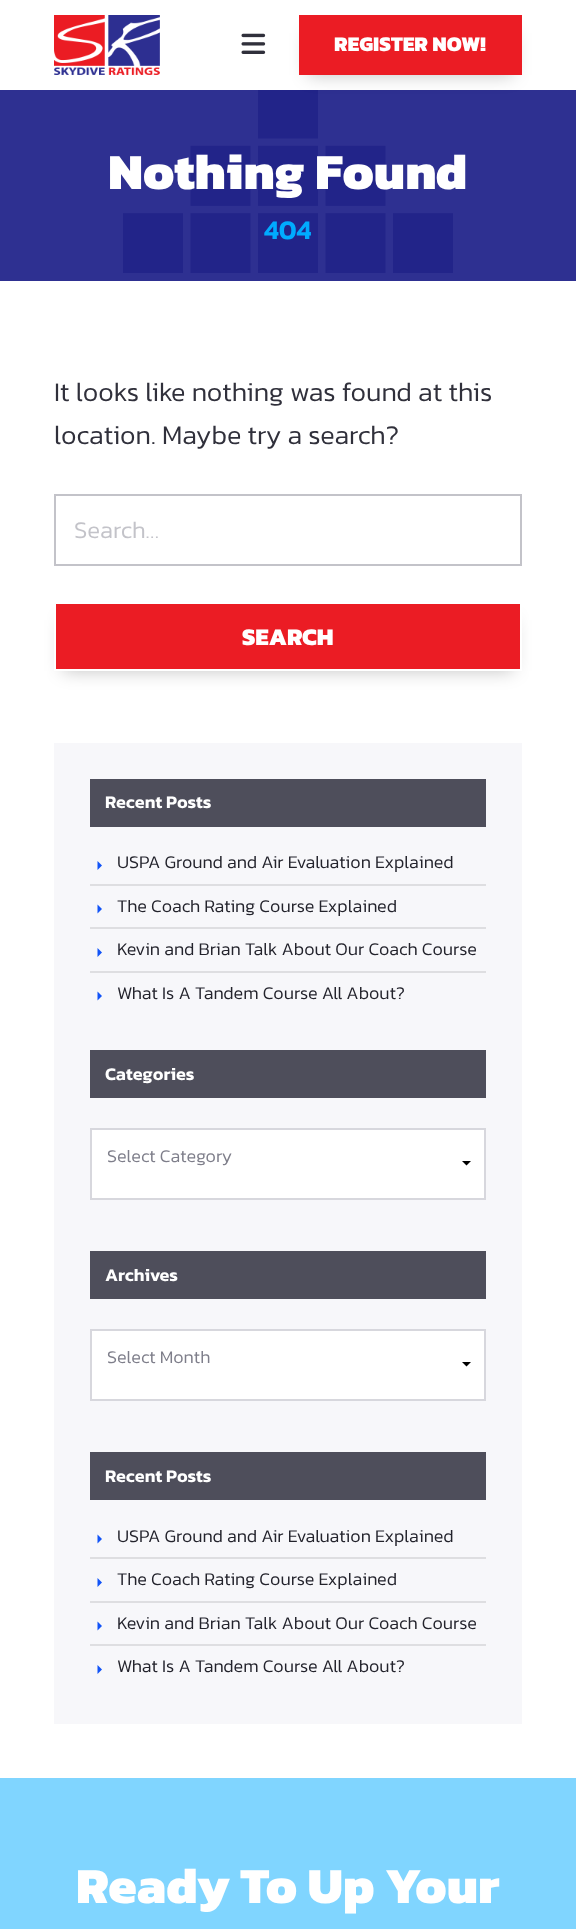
<?xml version="1.0" encoding="UTF-8"?>
<svg xmlns="http://www.w3.org/2000/svg" xmlns:xlink="http://www.w3.org/1999/xlink" width="576" height="1929">
  <rect width="100%" height="100%" fill="#ffffff" />
  <image x="54" y="15" width="106" height="60" xlink:href="image1.png" />
  <image x="241" y="33" width="25" height="21" xlink:href="image2.png" />
  <rect y="90" width="576" height="191" fill="#2e3091" />
  <image x="123" y="90" width="330" height="183" xlink:href="image3.png" />
  <rect x="308" y="33" width="205" height="42" fill="#000000" fill-opacity="0.24" filter="blur(9px)" />
  <rect x="299" y="15" width="223" height="60" fill="#eb1c24" />
  <rect x="55" y="495" width="466" height="70" fill="none" stroke="#c3c3c9" stroke-width="2" />
  <rect x="63" y="620" width="450" height="51" fill="#000000" fill-opacity="0.24" filter="blur(9px)" />
  <rect x="55" y="603" width="466" height="67" fill="#eb1c24" stroke="#ffffff" stroke-width="2" />
  <rect x="54" y="743" width="468" height="981" fill="#f7f7fa" />
  <rect x="90" y="779" width="396" height="48" fill="#4e4e5b" />
  <path d="M 97.5 870 v -9 l 4.5 4.5 z" fill="#1254f7" />
  <rect x="90" y="884" width="396" height="2" fill="#dedee1" />
  <path d="M 97.5 913.5 v -9 l 4.5 4.5 z" fill="#1254f7" />
  <rect x="90" y="927" width="396" height="2" fill="#dedee1" />
  <path d="M 97.5 957 v -9 l 4.5 4.5 z" fill="#1254f7" />
  <rect x="90" y="971" width="396" height="2" fill="#dedee1" />
  <path d="M 97.5 1000.5 v -9 l 4.5 4.5 z" fill="#1254f7" />
  <rect x="90" y="1050" width="396" height="48" fill="#4e4e5b" />
  <rect x="92" y="1130" width="392" height="68" fill="#ffffff" />
  <path d="M 471 1161 l -4.5 4.5 l -4.5 -4.5 z" fill="#000000" />
  <rect x="91" y="1129" width="394" height="70" fill="none" stroke="#d7d7dd" stroke-width="2" />
  <rect x="90" y="1251" width="396" height="48" fill="#4e4e5b" />
  <rect x="92" y="1331" width="392" height="68" fill="#ffffff" />
  <path d="M 471 1362 l -4.5 4.5 l -4.5 -4.5 z" fill="#000000" />
  <rect x="91" y="1330" width="394" height="70" fill="none" stroke="#d7d7dd" stroke-width="2" />
  <rect x="90" y="1452" width="396" height="48" fill="#4e4e5b" />
  <path d="M 97.5 1543.5 v -9 l 4.5 4.5 z" fill="#1254f7" />
  <rect x="90" y="1557" width="396" height="2" fill="#dedee1" />
  <path d="M 97.5 1587 v -9 l 4.5 4.5 z" fill="#1254f7" />
  <rect x="90" y="1601" width="396" height="2" fill="#dedee1" />
  <path d="M 97.5 1630.5 v -9 l 4.5 4.5 z" fill="#1254f7" />
  <rect x="90" y="1644" width="396" height="2" fill="#dedee1" />
  <path d="M 97.5 1674 v -9 l 4.5 4.5 z" fill="#1254f7" />
  <rect y="1778" width="576" height="151" fill="#80d5ff" />
  <text x="334" y="51" style="font-family: Kanit; font-size: 21px; font-weight: 800; fill: #ffffff">REGISTER NOW!</text>
  <text x="108" y="189" style="font-family: Kanit; font-size: 51px; font-weight: 800; fill: #ffffff">Nothing Found</text>
  <text x="264" y="239" style="font-family: Kanit; font-size: 27px; font-weight: 600; fill: #00abff">404</text>
  <text x="54" y="401" style="font-family: Kanit; font-size: 27px; font-weight: 300; fill: #30303b">It looks like nothing was found at this</text>
  <text x="54" y="444" style="font-family: Kanit; font-size: 27px; font-weight: 300; fill: #30303b">location. Maybe try a search?</text>
  <text x="74" y="538" style="font-family: Kanit; font-size: 24px; font-weight: 300; fill: #c3c3c9">Search…</text>
  <text x="242" y="645" style="font-family: Kanit; font-size: 24px; font-weight: 800; fill: #ffffff">SEARCH</text>
  <text x="105" y="808" style="font-family: Kanit; font-size: 18px; font-weight: 600; fill: #ffffff">Recent Posts</text>
  <text x="117" y="868" style="font-family: Kanit; font-size: 18px; font-weight: 300; fill: #23232c">USPA Ground and Air Evaluation Explained</text>
  <text x="117" y="912" style="font-family: Kanit; font-size: 18px; font-weight: 300; fill: #23232c">The Coach Rating Course Explained</text>
  <text x="117" y="955" style="font-family: Kanit; font-size: 18px; font-weight: 300; fill: #23232c">Kevin and Brian Talk About Our Coach Course</text>
  <text x="117" y="999" style="font-family: Kanit; font-size: 18px; font-weight: 300; fill: #23232c">What Is A Tandem Course All About?</text>
  <text x="105" y="1080" style="font-family: Kanit; font-size: 18px; font-weight: 600; fill: #ffffff">Categories</text>
  <text x="107" y="1162" style="font-family: Kanit; font-size: 18px; font-weight: 300; fill: #7e7e8a">Select Category</text>
  <text x="105" y="1281" style="font-family: Kanit; font-size: 18px; font-weight: 600; fill: #ffffff">Archives</text>
  <text x="107" y="1363" style="font-family: Kanit; font-size: 18px; font-weight: 300; fill: #7e7e8a">Select Month</text>
  <text x="105" y="1482" style="font-family: Kanit; font-size: 18px; font-weight: 600; fill: #ffffff">Recent Posts</text>
  <text x="117" y="1542" style="font-family: Kanit; font-size: 18px; font-weight: 300; fill: #23232c">USPA Ground and Air Evaluation Explained</text>
  <text x="117" y="1585" style="font-family: Kanit; font-size: 18px; font-weight: 300; fill: #23232c">The Coach Rating Course Explained</text>
  <text x="117" y="1629" style="font-family: Kanit; font-size: 18px; font-weight: 300; fill: #23232c">Kevin and Brian Talk About Our Coach Course</text>
  <text x="117" y="1672" style="font-family: Kanit; font-size: 18px; font-weight: 300; fill: #23232c">What Is A Tandem Course All About?</text>
  <text x="76" y="1903" style="font-family: Kanit; font-size: 51px; font-weight: 800; fill: #ffffff">Ready To Up Your</text>
</svg>
